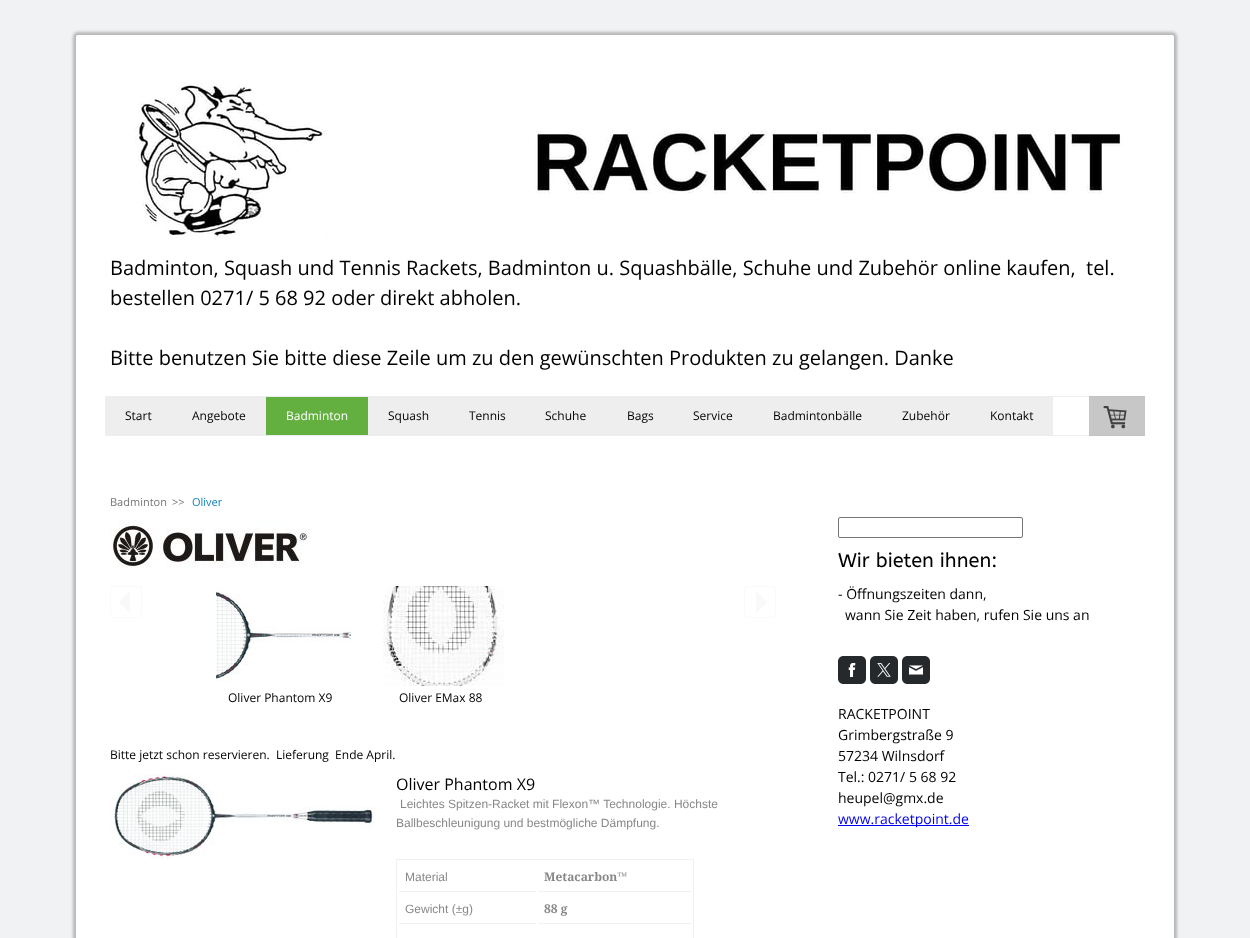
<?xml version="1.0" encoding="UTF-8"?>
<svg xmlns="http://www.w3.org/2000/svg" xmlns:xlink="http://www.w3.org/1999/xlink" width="1250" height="938">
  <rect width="100%" height="100%" fill="#f1f2f3" />
  <rect x="73" y="32" width="1104" height="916" rx="5" fill="#333333" fill-opacity="0.3" filter="blur(1.5px)" />
  <rect x="76" y="35" width="1098" height="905" rx="2" fill="#ffffff" />
  <rect x="1089" y="397" width="56" height="38" fill="#c7c7c7" />
  <image x="134" y="82" width="989" height="158" xlink:href="image1.png" />
  <rect x="105" y="396" width="984" height="1" fill="#ededed" />
  <rect x="1089" y="396" width="56" height="1" fill="#c2c2c2" />
  <rect x="105" y="435" width="984" height="1" fill="#ededed" />
  <rect x="1089" y="435" width="56" height="1" fill="#c2c2c2" />
  <rect x="105" y="397" width="161" height="38" fill="#eeeeee" />
  <rect x="266" y="397" width="102" height="38" fill="#63b040" />
  <rect x="368" y="397" width="685" height="38" fill="#eeeeee" />
  <image x="1103" y="406" width="24" height="23" xlink:href="image2.png" />
  <image x="110" y="520" width="200" height="48" xlink:href="image3.png" />
  <rect x="110.5" y="586.5" width="31" height="31" rx="2.5" fill="none" stroke="#fafafa" />
  <image x="119" y="591" width="11" height="22" xlink:href="image4.png" />
  <rect x="744.5" y="586.5" width="31" height="31" rx="2.5" fill="none" stroke="#fafafa" />
  <image x="756" y="591" width="11" height="22" xlink:href="image5.png" />
  <image x="216" y="586" width="135" height="96" xlink:href="image6.png" />
  <image x="383" y="586" width="121" height="100" xlink:href="image7.png" />
  <image x="110" y="774" width="264" height="85" xlink:href="image8.png" />
  <rect x="396" y="859" width="298" height="1" fill="#f1f1f1" />
  <rect x="693" y="859" width="1" height="79" fill="#f1f1f1" />
  <rect x="396" y="859" width="1" height="79" fill="#f1f1f1" />
  <rect x="399" y="891" width="137" height="1" fill="#f1f1f1" />
  <rect x="538" y="891" width="153" height="1" fill="#f1f1f1" />
  <rect x="399" y="923" width="137" height="1" fill="#f1f1f1" />
  <rect x="538" y="923" width="153" height="1" fill="#f1f1f1" />
  <rect x="838.5" y="517.5" width="184" height="20" rx="1.5" fill="none" stroke="#767676" />
  <image x="838" y="656" width="28" height="28" xlink:href="image9.png" />
  <image x="848" y="663" width="8" height="14" xlink:href="image10.png" />
  <image x="870" y="656" width="28" height="28" xlink:href="image9.png" />
  <image x="877" y="663" width="14" height="14" xlink:href="image11.png" />
  <image x="902" y="656" width="28" height="28" xlink:href="image9.png" />
  <image x="909" y="665" width="14" height="10" xlink:href="image12.png" />
  <rect x="838" y="825" width="131" height="1" fill="#0000ee" />
  <text x="110" y="275" style="font-family: Open Sans; font-size: 20px; fill: #000000" xml:space="preserve">Badminton, Squash und Tennis Rackets, Badminton u. Squashbälle, Schuhe und Zubehör online kaufen,  tel.</text>
  <text x="110" y="305" style="font-family: Open Sans; font-size: 20px; fill: #000000">bestellen 0271/ 5 68 92 oder direkt abholen.</text>
  <text x="110" y="365" style="font-family: Open Sans; font-size: 20px; fill: #000000">Bitte benutzen Sie bitte diese Zeile um zu den gewünschten Produkten zu gelangen. Danke</text>
  <text x="125" y="420" style="font-family: Open Sans; font-size: 12px; fill: #000000">Start</text>
  <text x="192" y="420" style="font-family: Open Sans; font-size: 12px; fill: #000000">Angebote</text>
  <text x="286" y="420" style="font-family: Open Sans; font-size: 12px; fill: #ffffff">Badminton</text>
  <text x="388" y="420" style="font-family: Open Sans; font-size: 12px; fill: #000000">Squash</text>
  <text x="469" y="420" style="font-family: Open Sans; font-size: 12px; fill: #000000">Tennis</text>
  <text x="545" y="420" style="font-family: Open Sans; font-size: 12px; fill: #000000">Schuhe</text>
  <text x="627" y="420" style="font-family: Open Sans; font-size: 12px; fill: #000000">Bags</text>
  <text x="693" y="420" style="font-family: Open Sans; font-size: 12px; fill: #000000">Service</text>
  <text x="773" y="420" style="font-family: Open Sans; font-size: 12px; fill: #000000">Badmintonbälle</text>
  <text x="902" y="420" style="font-family: Open Sans; font-size: 12px; fill: #000000">Zubehör</text>
  <text x="990" y="420" style="font-family: Open Sans; font-size: 12px; fill: #000000">Kontakt</text>
  <text x="110" y="506" style="font-family: Open Sans; font-size: 11px; fill: #757575">Badminton</text>
  <text x="172" y="506" style="font-family: Open Sans; font-size: 11px; fill: #757575">&gt;&gt;</text>
  <text x="192" y="506" style="font-family: Open Sans; font-size: 11px; fill: #1382b9">Oliver</text>
  <text x="228" y="702" style="font-family: Open Sans; font-size: 12px; fill: #000000">Oliver Phantom X9</text>
  <text x="399" y="702" style="font-family: Open Sans; font-size: 12px; fill: #000000">Oliver EMax 88</text>
  <text x="110" y="759" style="font-family: Open Sans; font-size: 12px; fill: #000000" xml:space="preserve">Bitte jetzt schon reservieren.  Lieferung  Ende April.</text>
  <text x="396" y="790" style="font-family: Open Sans; font-size: 16px; fill: #000000">Oliver Phantom X9</text>
  <text x="400" y="808" style="font-family: Liberation Sans; font-size: 12px; fill: #888888">Leichtes Spitzen-Racket mit Flexon™ Technologie. Höchste</text>
  <text x="396" y="827" style="font-family: Liberation Sans; font-size: 12px; fill: #888888">Ballbeschleunigung und bestmögliche Dämpfung.</text>
  <text x="405" y="881" style="font-family: Liberation Sans; font-size: 12px; fill: #888888">Material</text>
  <text x="544" y="881" style="font-family: Noto Serif; font-size: 12px; font-weight: bold; fill: #888888">Metacarbon™</text>
  <text x="405" y="913" style="font-family: Liberation Sans; font-size: 12px; fill: #888888">Gewicht (±g)</text>
  <text x="544" y="913" style="font-family: Noto Serif; font-size: 12px; font-weight: bold; fill: #888888">88 g</text>
  <text x="838" y="567" style="font-family: ABeeZee; font-size: 20px; fill: #000000">Wir bieten ihnen:</text>
  <text x="838" y="599" style="font-family: Open Sans; font-size: 14px; fill: #000000">- Öffnungszeiten dann,</text>
  <text x="845" y="620" style="font-family: Open Sans; font-size: 14px; fill: #000000">wann Sie Zeit haben, rufen Sie uns an</text>
  <text x="838" y="719" style="font-family: Open Sans; font-size: 14px; fill: #000000">RACKETPOINT</text>
  <text x="838" y="740" style="font-family: Open Sans; font-size: 14px; fill: #000000">Grimbergstraße 9</text>
  <text x="838" y="761" style="font-family: Open Sans; font-size: 14px; fill: #000000">57234 Wilnsdorf</text>
  <text x="838" y="782" style="font-family: Open Sans; font-size: 14px; fill: #000000">Tel.: 0271/ 5 68 92</text>
  <text x="838" y="803" style="font-family: Open Sans; font-size: 14px; fill: #000000">heupel@gmx.de</text>
  <text x="838" y="824" style="font-family: Open Sans; font-size: 14px; fill: #0000ee">www.racketpoint.de</text>
</svg>
